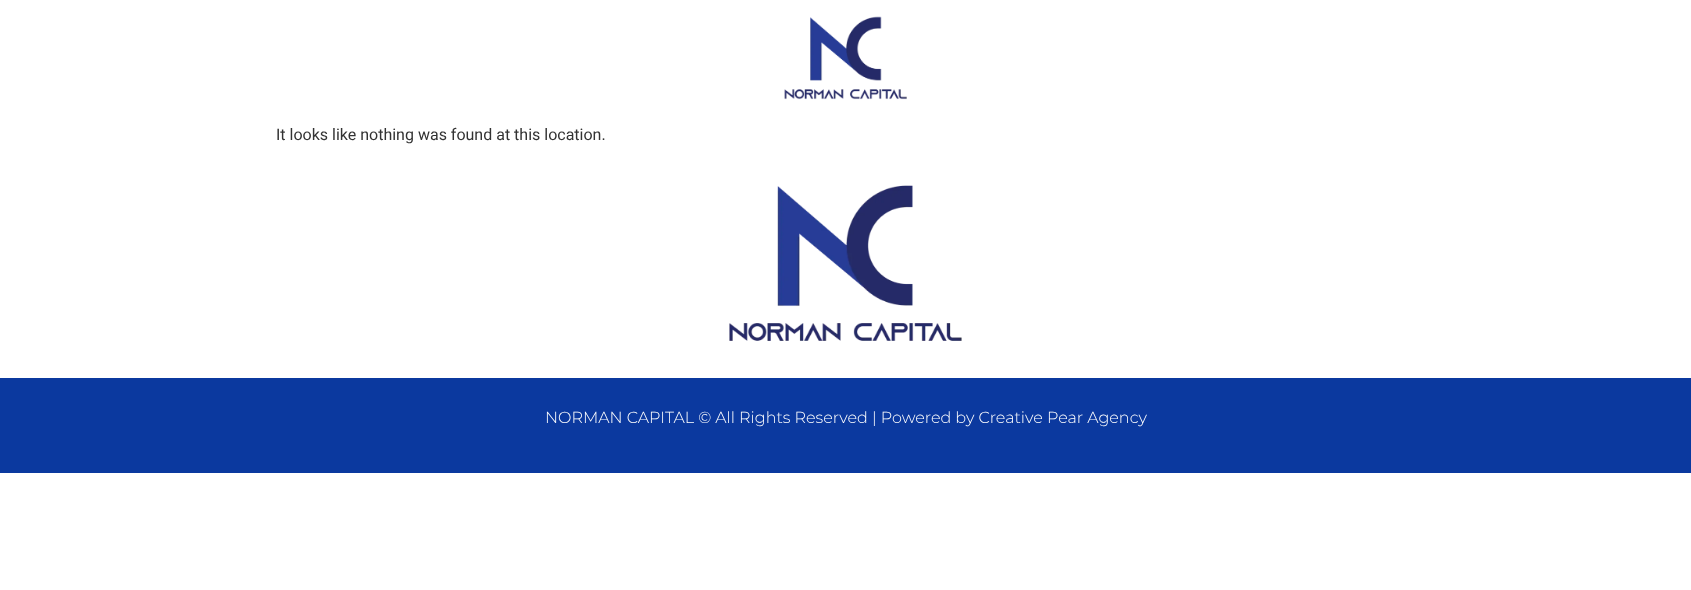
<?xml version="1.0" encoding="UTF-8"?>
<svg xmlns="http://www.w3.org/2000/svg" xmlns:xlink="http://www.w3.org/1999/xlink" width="1691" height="590">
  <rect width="100%" height="100%" fill="#ffffff" />
  <image x="784" y="16" width="123" height="84" xlink:href="image1.png" />
  <image x="729" y="185" width="233" height="156" xlink:href="image2.png" />
  <rect y="378" width="1691" height="95" fill="#0b399f" />
  <text x="276" y="140" style="font-family: Roboto; font-size: 16px; fill: #333333">It looks like nothing was found at this location.</text>
  <text x="545" y="423" style="font-family: Montserrat; font-size: 16px; font-weight: 300; fill: #ffffff">NORMAN CAPITAL © All Rights Reserved | Powered by Creative Pear Agency</text>
</svg>
